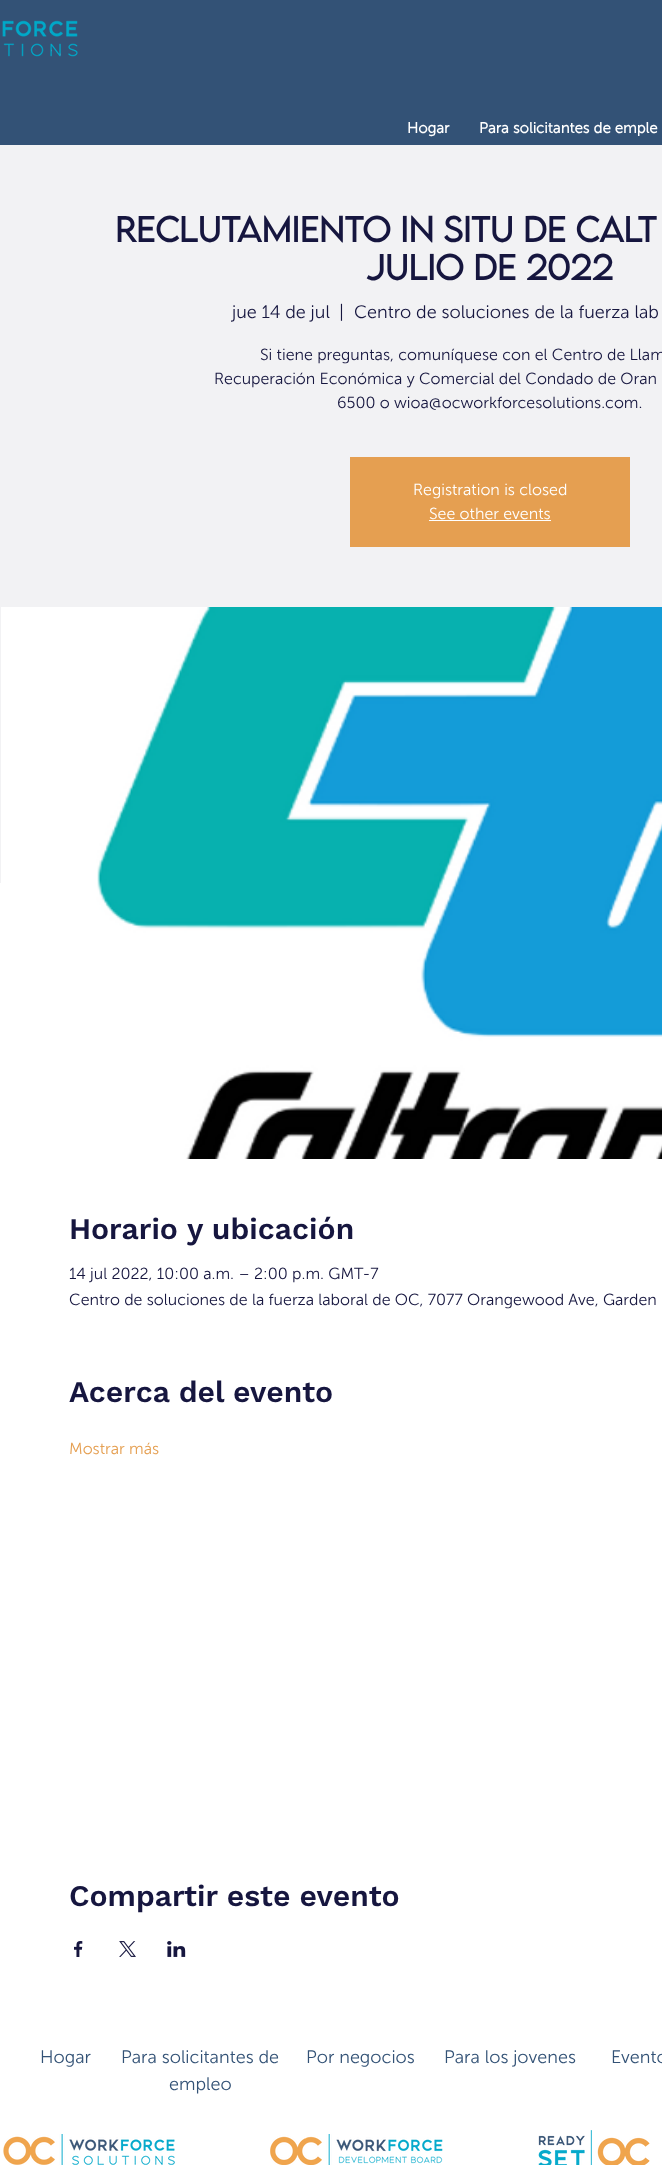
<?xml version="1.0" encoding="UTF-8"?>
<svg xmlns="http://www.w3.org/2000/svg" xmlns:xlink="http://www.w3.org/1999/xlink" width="662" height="2165">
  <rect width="100%" height="100%" fill="#ffffff" />
  <rect width="662" height="145" fill="#335276" />
  <image x="2" y="20" width="76" height="37" xlink:href="image1.png" />
  <rect y="145" width="662" height="738" fill="#f2f2f4" />
  <rect x="350" y="457" width="280" height="90" fill="#e59f51" />
  <rect x="429" y="520" width="122" height="1" fill="#ffffff" />
  <image x="1" y="607" width="661" height="552" xlink:href="image2.png" />
  <image x="74" y="1941" width="9" height="16" xlink:href="image3.png" />
  <image x="119" y="1941" width="17" height="16" xlink:href="image4.png" />
  <image x="167" y="1941" width="19" height="16" xlink:href="image5.png" />
  <image x="3" y="2134" width="172" height="31" xlink:href="image6.png" />
  <image x="270" y="2134" width="173" height="31" xlink:href="image7.png" />
  <image x="538" y="2130" width="112" height="35" xlink:href="image8.png" />
  <text x="407" y="133" style="font-family: Museo Sans; font-size: 15px; font-weight: bold; fill: #ffffff">Hogar</text>
  <text x="479" y="133" style="font-family: Museo Sans; font-size: 15px; font-weight: bold; fill: #ffffff">Para solicitantes de emple</text>
  <text x="115" y="242" style="font-family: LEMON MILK; font-size: 32px; font-weight: bold; fill: #16163f">Reclutamiento in situ de Calt</text>
  <text x="366" y="280" style="font-family: LEMON MILK; font-size: 32px; font-weight: bold; fill: #16163f">julio de 2022</text>
  <text x="232" y="318" style="font-family: Museo Sans; font-size: 18px; font-weight: 300; fill: #16163f">jue 14 de jul</text>
  <text x="339" y="318" style="font-family: Museo Sans; font-size: 18px; font-weight: 300; fill: #16163f">|</text>
  <text x="354" y="318" style="font-family: Museo Sans; font-size: 18px; font-weight: 300; fill: #16163f">Centro de soluciones de la fuerza lab</text>
  <text x="260" y="360" style="font-family: Museo Sans; font-size: 16px; font-weight: 300; fill: #16163f">Si tiene preguntas, comuníquese con el Centro de Llam</text>
  <text x="214" y="384" style="font-family: Museo Sans; font-size: 16px; font-weight: 300; fill: #16163f">Recuperación Económica y Comercial del Condado de Oran</text>
  <text x="337" y="408" style="font-family: Museo Sans; font-size: 16px; font-weight: 300; fill: #16163f">6500 o wioa@ocworkforcesolutions.com.</text>
  <text x="413" y="495" style="font-family: Museo Sans; font-size: 16px; font-weight: 300; fill: #ffffff">Registration is closed</text>
  <text x="429" y="519" style="font-family: Museo Sans; font-size: 16px; font-weight: 300; fill: #ffffff">See other events</text>
  <text x="69" y="1239" style="font-family: Work Sans; font-size: 30px; font-weight: 600; fill: #16163f">Horario y ubicación</text>
  <text x="69" y="1279" style="font-family: Museo Sans; font-size: 16px; font-weight: 300; fill: #16163f">14 jul 2022, 10:00 a.m. – 2:00 p.m. GMT-7</text>
  <text x="69" y="1305" style="font-family: Museo Sans; font-size: 16px; font-weight: 300; fill: #16163f">Centro de soluciones de la fuerza laboral de OC, 7077 Orangewood Ave, Garden</text>
  <text x="69" y="1402" style="font-family: Work Sans; font-size: 30px; font-weight: 600; fill: #16163f">Acerca del evento</text>
  <text x="69" y="1454" style="font-family: Museo Sans; font-size: 16px; font-weight: 300; fill: #e59f51">Mostrar más</text>
  <text x="69" y="1906" style="font-family: Work Sans; font-size: 30px; font-weight: 600; fill: #16163f">Compartir este evento</text>
  <text x="40" y="2063" style="font-family: Museo Sans; font-size: 18px; font-weight: 300; fill: #335276">Hogar</text>
  <text x="121" y="2063" style="font-family: Museo Sans; font-size: 18px; font-weight: 300; fill: #335276">Para solicitantes de</text>
  <text x="169" y="2090" style="font-family: Museo Sans; font-size: 18px; font-weight: 300; fill: #335276">empleo</text>
  <text x="306" y="2063" style="font-family: Museo Sans; font-size: 18px; font-weight: 300; fill: #335276">Por negocios</text>
  <text x="444" y="2063" style="font-family: Museo Sans; font-size: 18px; font-weight: 300; fill: #335276">Para los jovenes</text>
  <text x="611" y="2063" style="font-family: Museo Sans; font-size: 18px; font-weight: 300; fill: #335276">Evento</text>
</svg>
